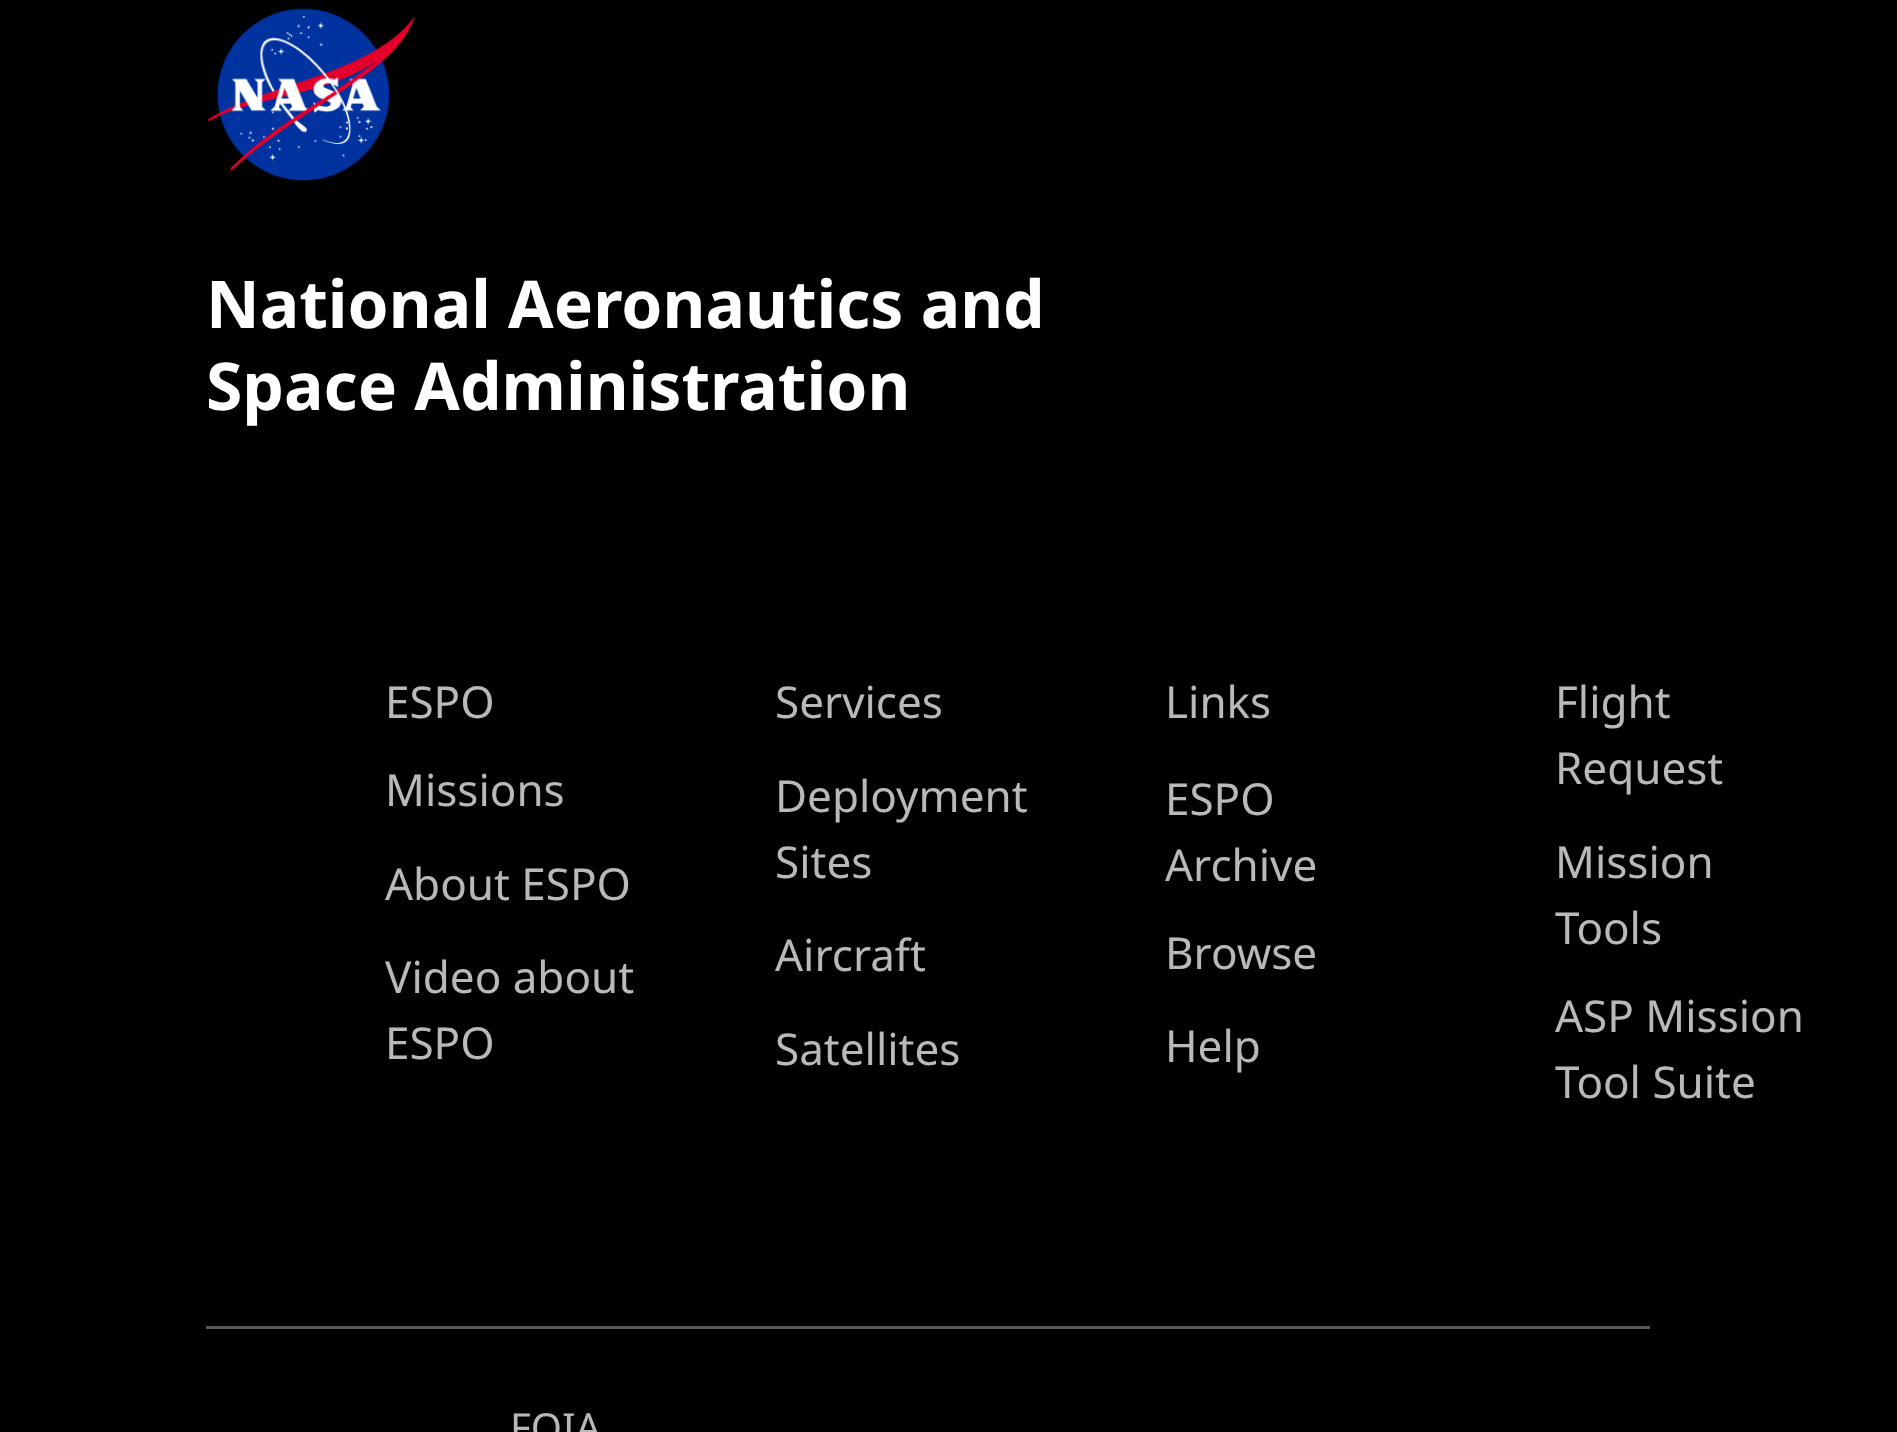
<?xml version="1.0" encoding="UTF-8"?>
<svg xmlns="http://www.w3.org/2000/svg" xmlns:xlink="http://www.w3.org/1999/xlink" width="1897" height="1432">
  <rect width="100%" height="100%" fill="#000000" />
  <image x="207" y="8" width="208" height="174" xlink:href="image1.png" />
  <rect x="206" y="1326" width="1444" height="3" fill="#58585b" />
  <text x="206" y="328" style="font-family: Noto Sans; font-size: 66px; font-weight: bold; fill: #ffffff">National Aeronautics and</text>
  <text x="206" y="410" style="font-family: Noto Sans; font-size: 66px; font-weight: bold; fill: #ffffff">Space Administration</text>
  <text x="775" y="718" style="font-family: Noto Sans; font-size: 44px; fill: #b9b9bb">Services</text>
  <text x="1165" y="718" style="font-family: Noto Sans; font-size: 44px; fill: #b9b9bb">Links</text>
  <text x="385" y="806" style="font-family: Noto Sans; font-size: 44px; fill: #b9b9bb">Missions</text>
  <text x="775" y="812" style="font-family: Noto Sans; font-size: 44px; fill: #b9b9bb">Deployment</text>
  <text x="775" y="878" style="font-family: Noto Sans; font-size: 44px; fill: #b9b9bb">Sites</text>
  <text x="385" y="900" style="font-family: Noto Sans; font-size: 44px; fill: #b9b9bb">About ESPO</text>
  <text x="775" y="971" style="font-family: Noto Sans; font-size: 44px; fill: #b9b9bb">Aircraft</text>
  <text x="385" y="993" style="font-family: Noto Sans; font-size: 44px; fill: #b9b9bb">Video about</text>
  <text x="385" y="1059" style="font-family: Noto Sans; font-size: 44px; fill: #b9b9bb">ESPO</text>
  <text x="775" y="1065" style="font-family: Noto Sans; font-size: 44px; fill: #b9b9bb">Satellites</text>
  <text x="385" y="718" style="font-family: Noto Sans; font-size: 44px; fill: #b9b9bb">ESPO</text>
  <text x="1555" y="718" style="font-family: Noto Sans; font-size: 44px; fill: #b9b9bb">Flight</text>
  <text x="1555" y="784" style="font-family: Noto Sans; font-size: 44px; fill: #b9b9bb">Request</text>
  <text x="1165" y="815" style="font-family: Noto Sans; font-size: 44px; fill: #b9b9bb">ESPO</text>
  <text x="1165" y="881" style="font-family: Noto Sans; font-size: 44px; fill: #b9b9bb">Archive</text>
  <text x="1165" y="969" style="font-family: Noto Sans; font-size: 44px; fill: #b9b9bb">Browse</text>
  <text x="1165" y="1062" style="font-family: Noto Sans; font-size: 44px; fill: #b9b9bb">Help</text>
  <text x="1555" y="878" style="font-family: Noto Sans; font-size: 44px; fill: #b9b9bb">Mission</text>
  <text x="1555" y="944" style="font-family: Noto Sans; font-size: 44px; fill: #b9b9bb">Tools</text>
  <text x="1555" y="1032" style="font-family: Noto Sans; font-size: 44px; fill: #b9b9bb">ASP Mission</text>
  <text x="1555" y="1098" style="font-family: Noto Sans; font-size: 44px; fill: #b9b9bb">Tool Suite</text>
  <text x="510" y="1442" style="font-family: Noto Sans; font-size: 40px; fill: #b9b9bb">FOIA</text>
</svg>
